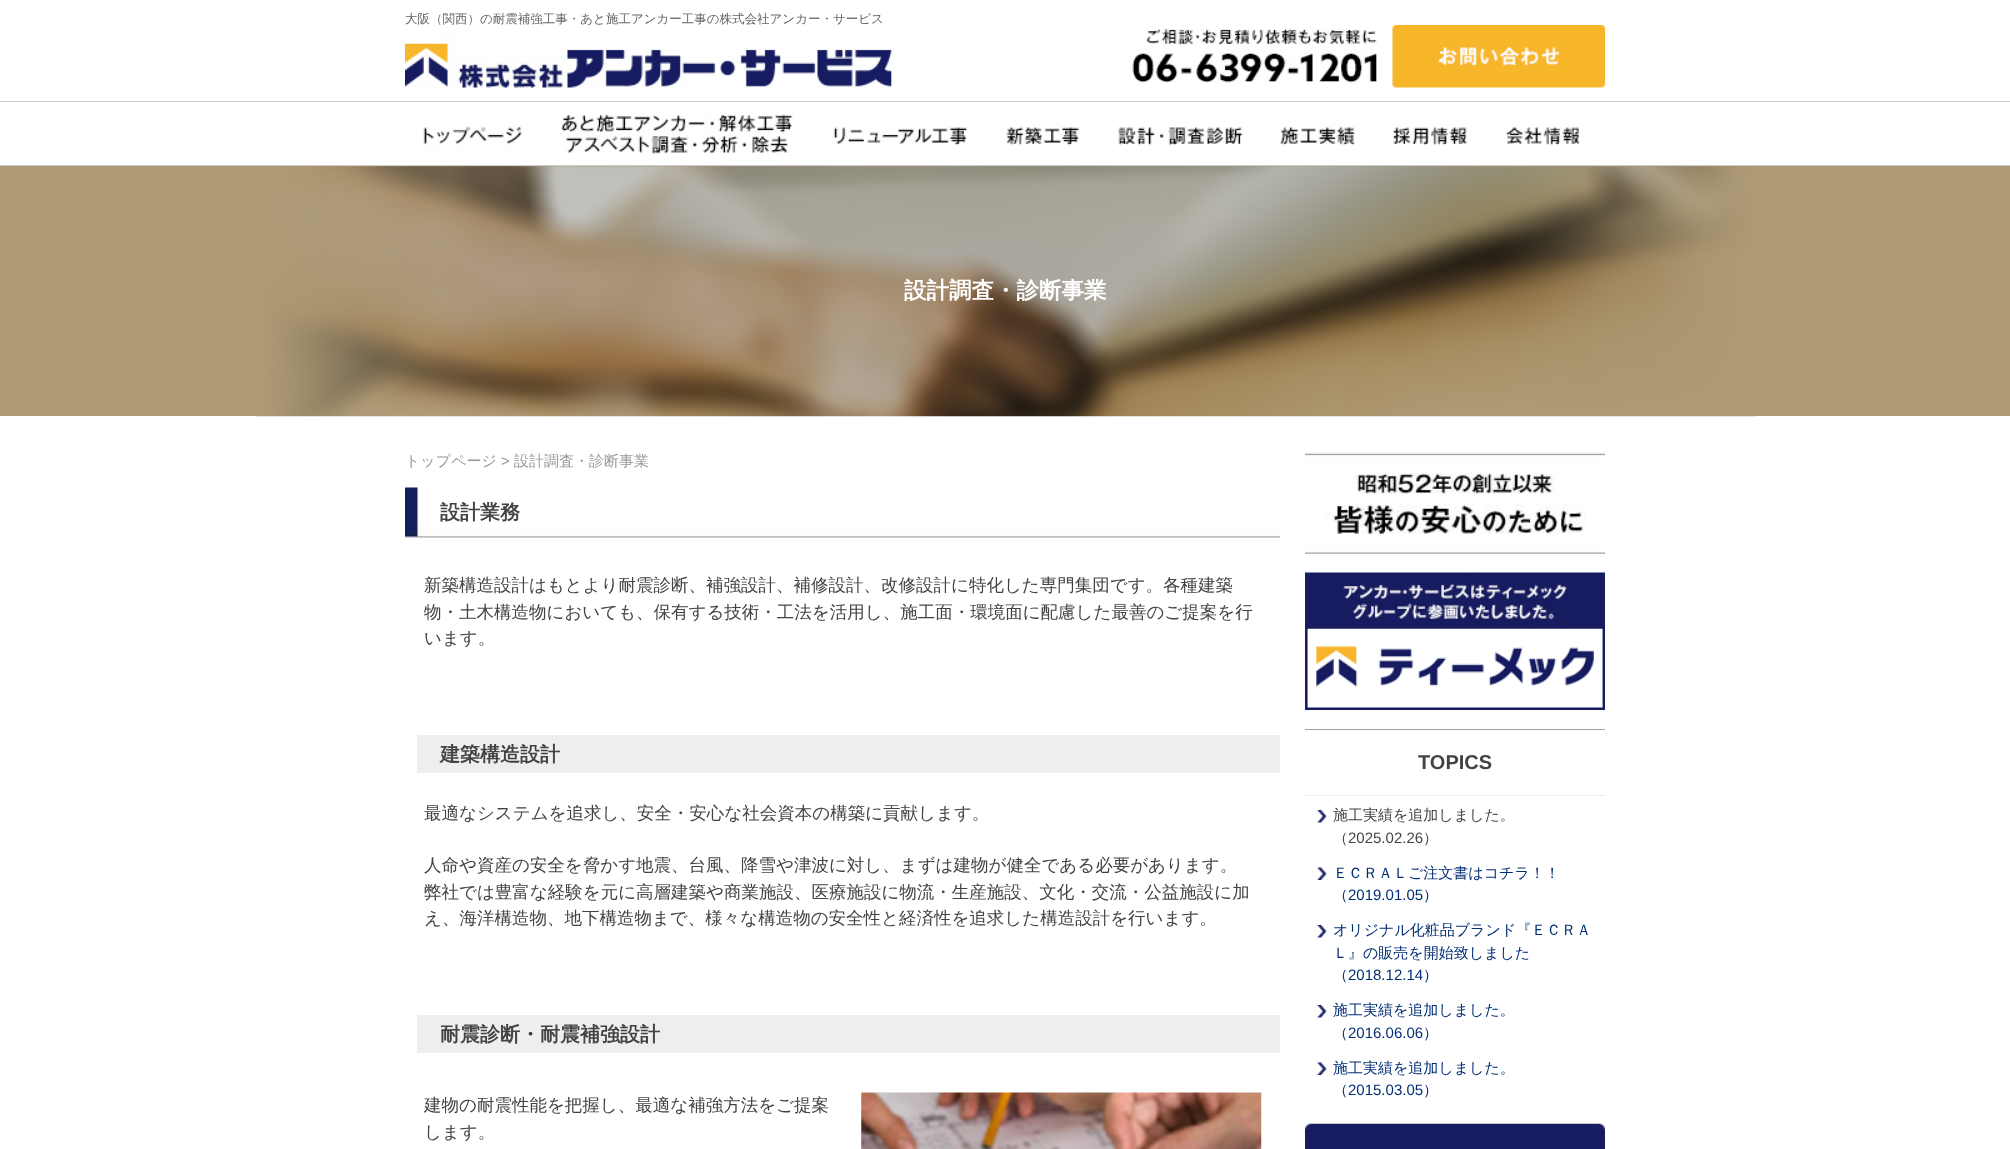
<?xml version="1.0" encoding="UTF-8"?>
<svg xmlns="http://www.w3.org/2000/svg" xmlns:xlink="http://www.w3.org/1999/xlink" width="2010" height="1149">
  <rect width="100%" height="100%" fill="#ffffff" />
  <image x="1132" y="28" width="245" height="55" xlink:href="image2.png" />
  <image x="1392" y="25" width="213" height="63" xlink:href="image3.png" />
  <rect y="101" width="2010" height="1" fill="#cccccc" />
  <rect y="165" width="2010" height="1" fill="#cccccc" />
  <image x="423" y="126" width="99" height="25" xlink:href="image4.png" />
  <image x="561" y="114" width="232" height="40" xlink:href="image5.png" />
  <image x="833" y="127" width="134" height="19" xlink:href="image6.png" />
  <image x="1006" y="127" width="73" height="19" xlink:href="image7.png" />
  <image x="1118" y="127" width="125" height="19" xlink:href="image8.png" />
  <image x="1280" y="126" width="76" height="20" xlink:href="image9.png" />
  <image x="1393" y="127" width="75" height="19" xlink:href="image10.png" />
  <image x="1506" y="127" width="74" height="19" xlink:href="image11.png" />
  <rect y="166" width="2010" height="250" fill="#ad9974" />
  <image x="255" y="166" width="1500" height="251" xlink:href="image12.png" />
  <image x="405" y="487" width="875" height="51" xlink:href="image13.png" />
  <rect x="417" y="735" width="863" height="38" fill="#eeeeee" />
  <rect x="417" y="1015" width="863" height="38" fill="#eeeeee" />
  <image x="861" y="1092" width="401" height="57" xlink:href="image14.png" />
  <image x="1305" y="453" width="300" height="101" xlink:href="image15.png" />
  <image x="1305" y="572" width="300" height="138" xlink:href="image16.png" />
  <rect x="1305" y="729" width="300" height="1" fill="#a0a0a0" />
  <rect x="1305" y="795" width="300" height="1" fill="#eeeeee" />
  <image x="1317" y="810" width="10" height="13" xlink:href="image17.png" />
  <image x="1317" y="867" width="10" height="13" xlink:href="image18.png" />
  <image x="1317" y="925" width="10" height="13" xlink:href="image17.png" />
  <image x="1317" y="1005" width="10" height="13" xlink:href="image17.png" />
  <image x="1317" y="1062" width="10" height="13" xlink:href="image18.png" />
  <image x="1305" y="1123" width="300" height="26" xlink:href="image19.png" />
  <text x="405" y="23" style="font-family: WenQuanYi Zen Hei; font-size: 12.5px; font-weight: 500; fill: #666666">大阪（関西）の耐震補強工事・あと施工アンカー工事の株式会社アンカー・サービス</text>
  <image x="405" y="25" width="490" height="64" xlink:href="image1.png" />
  <text x="904" y="298" style="font-family: WenQuanYi Zen Hei; font-size: 22.5px; font-weight: bold; fill: #ffffff">設計調査・診断事業</text>
  <text x="405" y="466" style="font-family: WenQuanYi Zen Hei; font-size: 15px; font-weight: 500; fill: #999999">トップページ</text>
  <text x="501" y="466" style="font-family: Liberation Sans; font-size: 15px; fill: #999999">&gt;</text>
  <text x="514" y="466" style="font-family: WenQuanYi Zen Hei; font-size: 15px; font-weight: 500; fill: #999999">設計調査・診断事業</text>
  <text x="440" y="519" style="font-family: WenQuanYi Zen Hei; font-size: 20px; font-weight: bold; fill: #434343">設計業務</text>
  <text x="424" y="591" style="font-family: WenQuanYi Zen Hei; font-size: 17.5px; font-weight: 500; fill: #434343">新築構造設計はもとより耐震診断、補強設計、補修設計、改修設計に特化した専門集団です。各種建築</text>
  <text x="424" y="618" style="font-family: WenQuanYi Zen Hei; font-size: 17.5px; font-weight: 500; fill: #434343">物・土木構造物においても、保有する技術・工法を活用し、施工面・環境面に配慮した最善のご提案を行</text>
  <text x="424" y="644" style="font-family: WenQuanYi Zen Hei; font-size: 17.5px; font-weight: 500; fill: #434343">います。</text>
  <text x="440" y="761" style="font-family: WenQuanYi Zen Hei; font-size: 20px; font-weight: bold; fill: #434343">建築構造設計</text>
  <text x="424" y="819" style="font-family: WenQuanYi Zen Hei; font-size: 17.5px; font-weight: 500; fill: #434343">最適なシステムを追求し、安全・安心な社会資本の構築に貢献します。</text>
  <text x="424" y="871" style="font-family: WenQuanYi Zen Hei; font-size: 17.5px; font-weight: 500; fill: #434343">人命や資産の安全を脅かす地震、台風、降雪や津波に対し、まずは建物が健全である必要があります。</text>
  <text x="424" y="898" style="font-family: WenQuanYi Zen Hei; font-size: 17.5px; font-weight: 500; fill: #434343">弊社では豊富な経験を元に高層建築や商業施設、医療施設に物流・生産施設、文化・交流・公益施設に加</text>
  <text x="424" y="924" style="font-family: WenQuanYi Zen Hei; font-size: 17.5px; font-weight: 500; fill: #434343">え、海洋構造物、地下構造物まで、様々な構造物の安全性と経済性を追求した構造設計を行います。</text>
  <text x="440" y="1041" style="font-family: WenQuanYi Zen Hei; font-size: 20px; font-weight: bold; fill: #434343">耐震診断・耐震補強設計</text>
  <text x="424" y="1111" style="font-family: WenQuanYi Zen Hei; font-size: 17.5px; font-weight: 500; fill: #434343">建物の耐震性能を把握し、最適な補強方法をご提案</text>
  <text x="424" y="1138" style="font-family: WenQuanYi Zen Hei; font-size: 17.5px; font-weight: 500; fill: #434343">します。</text>
  <text x="1418" y="769" style="font-family: Liberation Sans; font-size: 20px; font-weight: bold; fill: #434343">TOPICS</text>
  <text x="1333" y="820" style="font-family: WenQuanYi Zen Hei; font-size: 15px; font-weight: 500; fill: #434343">施工実績を追加しました。</text>
  <text x="1333" y="843" style="font-family: WenQuanYi Zen Hei; font-size: 15px; font-weight: 500; fill: #434343">（</text>
  <text x="1348" y="843" style="font-family: Liberation Sans; font-size: 15px; fill: #434343">2025.02.26</text>
  <text x="1423" y="843" style="font-family: WenQuanYi Zen Hei; font-size: 15px; font-weight: 500; fill: #434343">）</text>
  <text x="1333" y="878" style="font-family: WenQuanYi Zen Hei; font-size: 15px; font-weight: 500; fill: #002e73">ＥＣＲＡＬご注文書はコチラ！！</text>
  <text x="1333" y="900" style="font-family: WenQuanYi Zen Hei; font-size: 15px; font-weight: 500; fill: #002e73">（</text>
  <text x="1348" y="900" style="font-family: Liberation Sans; font-size: 15px; fill: #002e73">2019.01.05</text>
  <text x="1423" y="900" style="font-family: WenQuanYi Zen Hei; font-size: 15px; font-weight: 500; fill: #002e73">）</text>
  <text x="1333" y="935" style="font-family: WenQuanYi Zen Hei; font-size: 15px; font-weight: 500; fill: #002e73">オリジナル化粧品ブランド『ＥＣＲＡ</text>
  <text x="1333" y="958" style="font-family: WenQuanYi Zen Hei; font-size: 15px; font-weight: 500; fill: #002e73">Ｌ』の販売を開始致しました</text>
  <text x="1333" y="980" style="font-family: WenQuanYi Zen Hei; font-size: 15px; font-weight: 500; fill: #002e73">（</text>
  <text x="1348" y="980" style="font-family: Liberation Sans; font-size: 15px; fill: #002e73">2018.12.14</text>
  <text x="1423" y="980" style="font-family: WenQuanYi Zen Hei; font-size: 15px; font-weight: 500; fill: #002e73">）</text>
  <text x="1333" y="1015" style="font-family: WenQuanYi Zen Hei; font-size: 15px; font-weight: 500; fill: #002e73">施工実績を追加しました。</text>
  <text x="1333" y="1038" style="font-family: WenQuanYi Zen Hei; font-size: 15px; font-weight: 500; fill: #002e73">（</text>
  <text x="1348" y="1038" style="font-family: Liberation Sans; font-size: 15px; fill: #002e73">2016.06.06</text>
  <text x="1423" y="1038" style="font-family: WenQuanYi Zen Hei; font-size: 15px; font-weight: 500; fill: #002e73">）</text>
  <text x="1333" y="1073" style="font-family: WenQuanYi Zen Hei; font-size: 15px; font-weight: 500; fill: #002e73">施工実績を追加しました。</text>
  <text x="1333" y="1095" style="font-family: WenQuanYi Zen Hei; font-size: 15px; font-weight: 500; fill: #002e73">（</text>
  <text x="1348" y="1095" style="font-family: Liberation Sans; font-size: 15px; fill: #002e73">2015.03.05</text>
  <text x="1423" y="1095" style="font-family: WenQuanYi Zen Hei; font-size: 15px; font-weight: 500; fill: #002e73">）</text>
</svg>
